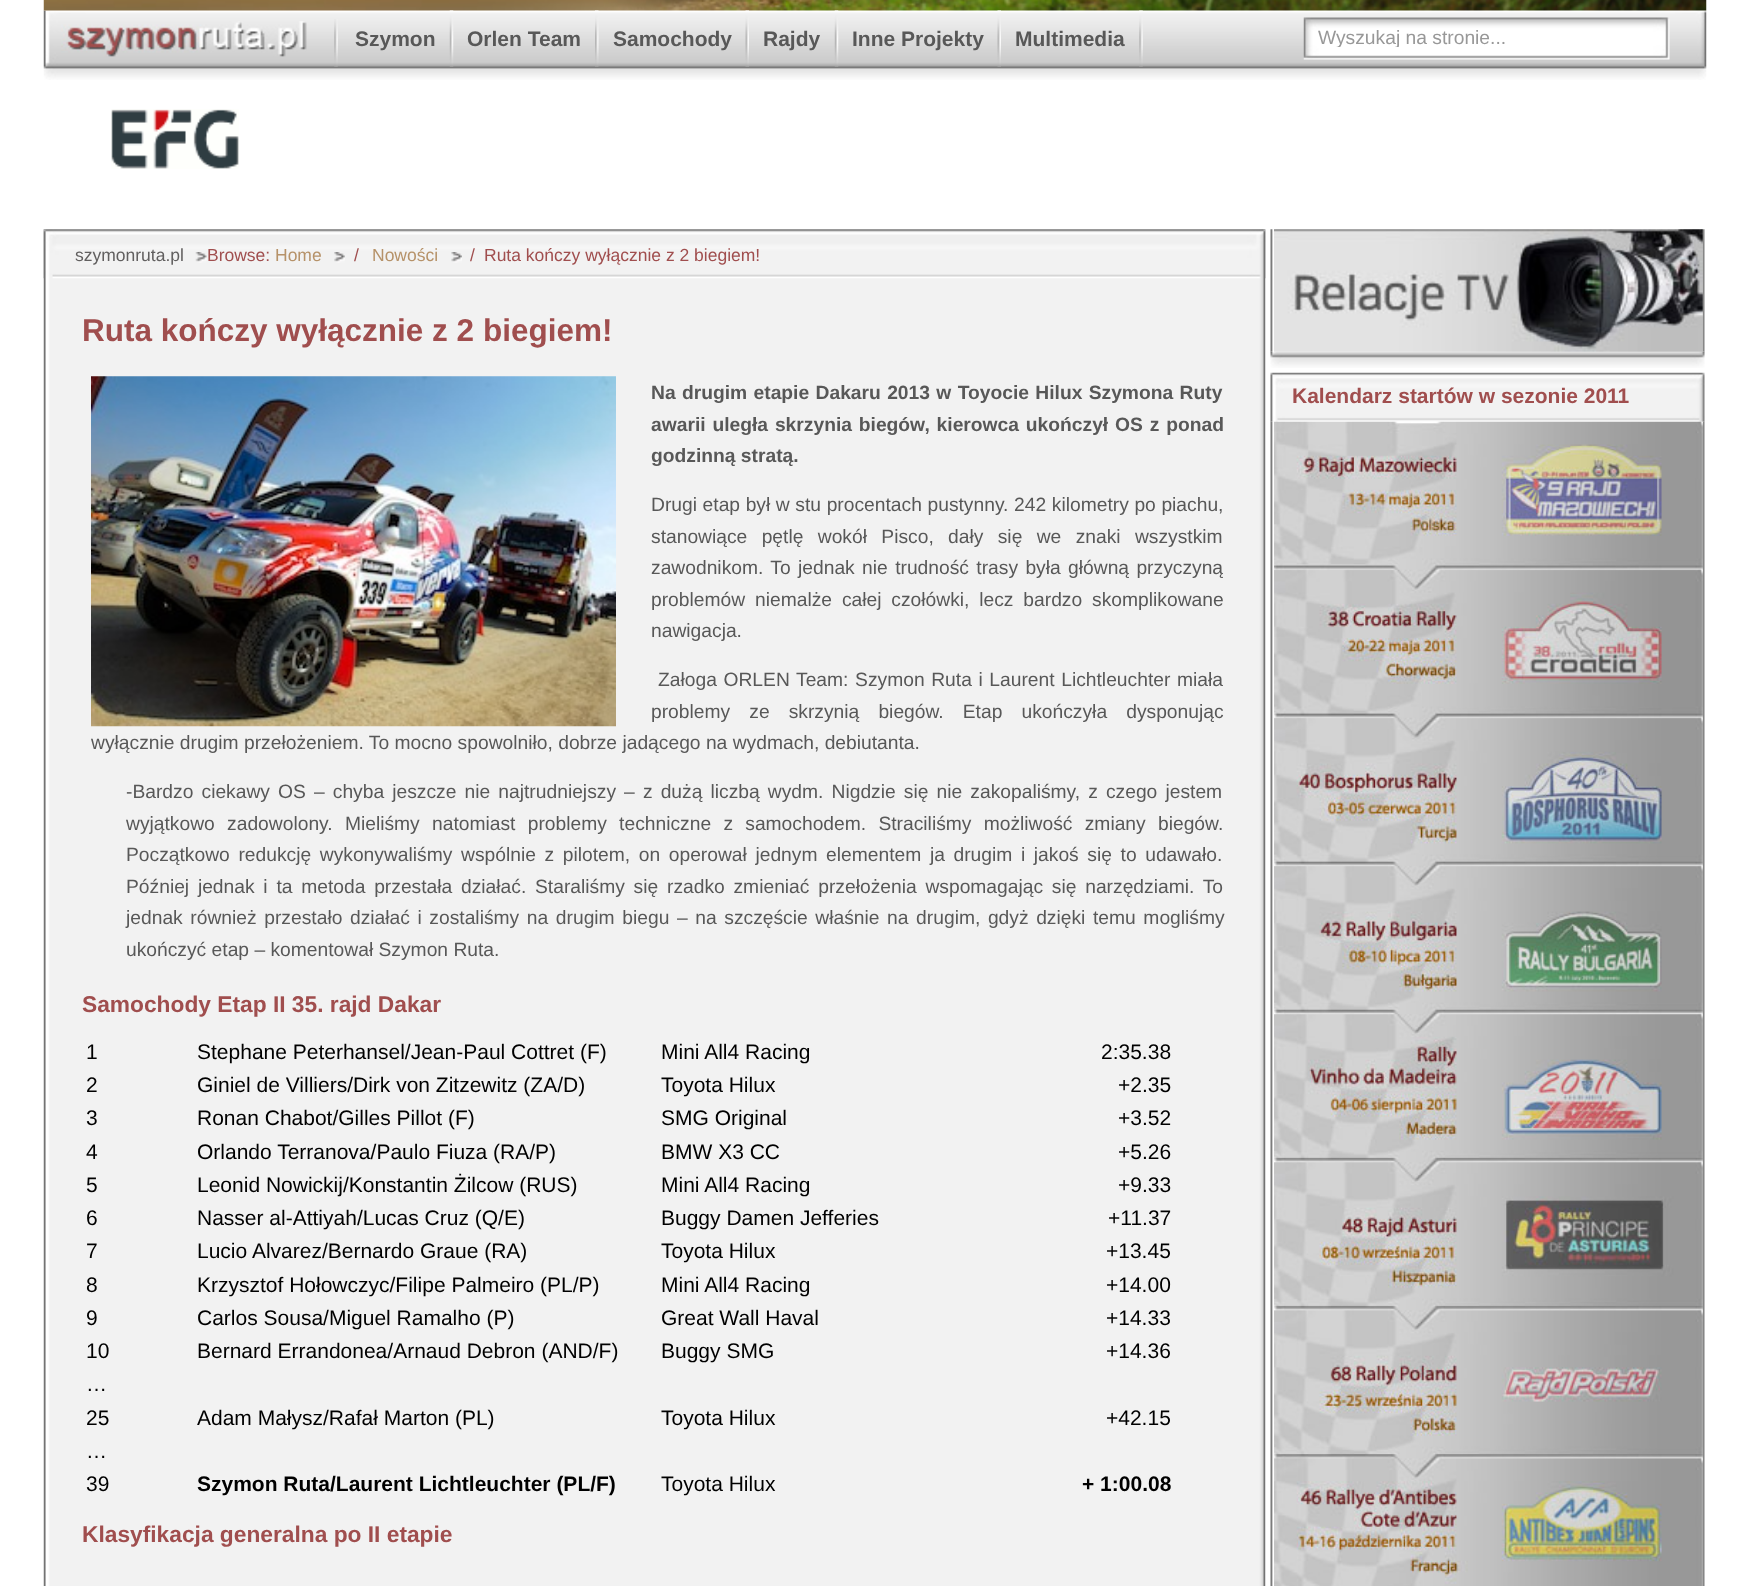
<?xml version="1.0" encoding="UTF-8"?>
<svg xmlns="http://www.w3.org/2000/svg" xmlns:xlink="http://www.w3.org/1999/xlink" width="1749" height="1586">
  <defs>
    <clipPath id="clip1"><rect x="1318" y="26" width="338" height="21" /></clipPath>
  </defs>
  <rect width="100%" height="100%" fill="#ffffff" />
  <image x="43" y="10" width="1664" height="70" xlink:href="image2.png" />
  <image x="43" y="0" width="1664" height="11" xlink:href="image1.png" />
  <image x="61" y="21" width="246" height="36" xlink:href="image3.png" />
  <image x="334" y="19" width="4" height="48" xlink:href="image4.png" />
  <image x="449" y="10" width="5" height="57" xlink:href="image5.png" />
  <image x="595" y="10" width="4" height="57" xlink:href="image6.png" />
  <image x="745" y="10" width="4" height="57" xlink:href="image7.png" />
  <image x="834" y="10" width="5" height="57" xlink:href="image8.png" />
  <image x="997" y="10" width="4" height="57" xlink:href="image9.png" />
  <image x="1139" y="10" width="4" height="57" xlink:href="image10.png" />
  <image x="1303" y="17" width="367" height="43" xlink:href="image11.png" />
  <image x="111" y="109" width="128" height="60" xlink:href="image12.png" />
  <image x="43" y="229" width="1223" height="1357" xlink:href="image13.png" />
  <image x="43" y="229" width="1223" height="50" xlink:href="image14.png" />
  <image x="195" y="252" width="12" height="11" xlink:href="image15.png" />
  <image x="334" y="252" width="11" height="11" xlink:href="image16.png" />
  <image x="451" y="252" width="11" height="11" xlink:href="image17.png" />
  <image x="91" y="376" width="525" height="351" xlink:href="image18.png" />
  <image x="1270" y="351" width="435" height="17" xlink:href="image19.png" />
  <image x="1270" y="229" width="435" height="123" xlink:href="image20.png" />
  <image x="1274" y="229" width="429" height="123" xlink:href="image21.png" />
  <image x="1270" y="372" width="435" height="50" xlink:href="image22.png" />
  <image x="1270" y="421" width="435" height="1165" xlink:href="image23.png" />
  <image x="1274" y="421" width="429" height="1165" xlink:href="image24.png" />
  <text x="355" y="46" style="font-family: Liberation Sans; font-size: 21px; font-weight: bold; fill: #585858">Szymon</text>
  <text x="467" y="46" style="font-family: Liberation Sans; font-size: 21px; font-weight: bold; fill: #585858">Orlen Team</text>
  <text x="613" y="46" style="font-family: Liberation Sans; font-size: 21px; font-weight: bold; fill: #585858">Samochody</text>
  <text x="763" y="46" style="font-family: Liberation Sans; font-size: 21px; font-weight: bold; fill: #585858">Rajdy</text>
  <text x="852" y="46" style="font-family: Liberation Sans; font-size: 21px; font-weight: bold; fill: #585858">Inne Projekty</text>
  <text x="1015" y="46" style="font-family: Liberation Sans; font-size: 21px; font-weight: bold; fill: #585858">Multimedia</text>
  <g clip-path="url(#clip1)">
    <text x="1318" y="44" style="font-family: Liberation Sans; font-size: 19.25px; fill: #989898">Wyszukaj na stronie...</text>
  </g>
  <text x="75" y="261" style="font-family: Liberation Sans; font-size: 17.5px; fill: #615f5f">szymonruta.pl</text>
  <text x="207" y="261" style="font-family: Liberation Sans; font-size: 17.5px; fill: #a04e4e">Browse:</text>
  <text x="275" y="261" style="font-family: Liberation Sans; font-size: 17.5px; fill: #b69269">Home</text>
  <text x="354" y="261" style="font-family: Liberation Sans; font-size: 17.5px; fill: #a04e4e">/</text>
  <text x="372" y="261" style="font-family: Liberation Sans; font-size: 17.5px; fill: #b69269">Nowości</text>
  <text x="470" y="261" style="font-family: Liberation Sans; font-size: 17.5px; fill: #a04e4e">/</text>
  <text x="484" y="261" style="font-family: Liberation Sans; font-size: 17.5px; fill: #a04e4e">Ruta kończy wyłącznie z 2 biegiem!</text>
  <text x="82" y="341" style="font-family: Liberation Sans; font-size: 31.5px; font-weight: bold; fill: #a04e4e">Ruta kończy wyłącznie z 2 biegiem!</text>
  <text x="651" y="399" word-spacing="1" style="font-family: Liberation Sans; font-size: 19.25px; font-weight: bold; fill: #585858">Na drugim etapie Dakaru 2013 w Toyocie Hilux Szymona Ruty</text>
  <text x="651" y="431" word-spacing="1.5" style="font-family: Liberation Sans; font-size: 19.25px; font-weight: bold; fill: #585858">awarii uległa skrzynia biegów, kierowca ukończył OS z ponad</text>
  <text x="651" y="462" style="font-family: Liberation Sans; font-size: 19.25px; font-weight: bold; fill: #585858">godzinną stratą.</text>
  <text x="651" y="511" word-spacing="0.25" style="font-family: Liberation Sans; font-size: 19.25px; fill: #585858">Drugi etap był w stu procentach pustynny. 242 kilometry po piachu,</text>
  <text x="651" y="543" word-spacing="9" style="font-family: Liberation Sans; font-size: 19.25px; fill: #585858">stanowiące pętlę wokół Pisco, dały się we znaki wszystkim</text>
  <text x="651" y="574" word-spacing="2" style="font-family: Liberation Sans; font-size: 19.25px; fill: #585858">zawodnikom. To jednak nie trudność trasy była główną przyczyną</text>
  <text x="651" y="606" word-spacing="4.5" style="font-family: Liberation Sans; font-size: 19.25px; fill: #585858">problemów niemalże całej czołówki, lecz bardzo skomplikowane</text>
  <text x="651" y="637" style="font-family: Liberation Sans; font-size: 19.25px; fill: #585858">nawigacja.</text>
  <text x="658" y="686" word-spacing="1.25" style="font-family: Liberation Sans; font-size: 19.25px; fill: #585858">Załoga ORLEN Team: Szymon Ruta i Laurent Lichtleuchter miała</text>
  <text x="651" y="718" word-spacing="13.75" style="font-family: Liberation Sans; font-size: 19.25px; fill: #585858">problemy ze skrzynią biegów. Etap ukończyła dysponując</text>
  <text x="91" y="749" style="font-family: Liberation Sans; font-size: 19.25px; fill: #585858">wyłącznie drugim przełożeniem. To mocno spowolniło, dobrze jadącego na wydmach, debiutanta.</text>
  <text x="126" y="798" word-spacing="2.75" style="font-family: Liberation Sans; font-size: 19.25px; fill: #585858">-Bardzo ciekawy OS – chyba jeszcze nie najtrudniejszy – z dużą liczbą wydm. Nigdzie się nie zakopaliśmy, z czego jestem</text>
  <text x="126" y="830" word-spacing="6.9" style="font-family: Liberation Sans; font-size: 19.25px; fill: #585858">wyjątkowo zadowolony. Mieliśmy natomiast problemy techniczne z samochodem. Straciliśmy możliwość zmiany biegów.</text>
  <text x="126" y="861" word-spacing="3.25" style="font-family: Liberation Sans; font-size: 19.25px; fill: #585858">Początkowo redukcję wykonywaliśmy wspólnie z pilotem, on operował jednym elementem ja drugim i jakoś się to udawało.</text>
  <text x="126" y="893" word-spacing="3.4" style="font-family: Liberation Sans; font-size: 19.25px; fill: #585858">Później jednak i ta metoda przestała działać. Staraliśmy się rzadko zmieniać przełożenia wspomagając się narzędziami. To</text>
  <text x="126" y="924" word-spacing="2.25" style="font-family: Liberation Sans; font-size: 19.25px; fill: #585858">jednak również przestało działać i zostaliśmy na drugim biegu – na szczęście właśnie na drugim, gdyż dzięki temu mogliśmy</text>
  <text x="126" y="956" style="font-family: Liberation Sans; font-size: 19.25px; fill: #585858">ukończyć etap – komentował Szymon Ruta.</text>
  <text x="82" y="1012" style="font-family: Liberation Sans; font-size: 22.75px; font-weight: bold; fill: #a04e4e">Samochody Etap II 35. rajd Dakar</text>
  <text x="86" y="1059" style="font-family: Liberation Sans; font-size: 21px; fill: #000000">1</text>
  <text x="197" y="1059" style="font-family: Liberation Sans; font-size: 21px; fill: #000000">Stephane Peterhansel/Jean-Paul Cottret (F)</text>
  <text x="661" y="1059" style="font-family: Liberation Sans; font-size: 21px; fill: #000000">Mini All4 Racing</text>
  <text x="1101" y="1059" style="font-family: Liberation Sans; font-size: 21px; fill: #000000">2:35.38</text>
  <text x="86" y="1092" style="font-family: Liberation Sans; font-size: 21px; fill: #000000">2</text>
  <text x="197" y="1092" style="font-family: Liberation Sans; font-size: 21px; fill: #000000">Giniel de Villiers/Dirk von Zitzewitz (ZA/D)</text>
  <text x="661" y="1092" style="font-family: Liberation Sans; font-size: 21px; fill: #000000">Toyota Hilux</text>
  <text x="1118" y="1092" style="font-family: Liberation Sans; font-size: 21px; fill: #000000">+2.35</text>
  <text x="86" y="1125" style="font-family: Liberation Sans; font-size: 21px; fill: #000000">3</text>
  <text x="197" y="1125" style="font-family: Liberation Sans; font-size: 21px; fill: #000000">Ronan Chabot/Gilles Pillot (F)</text>
  <text x="661" y="1125" style="font-family: Liberation Sans; font-size: 21px; fill: #000000">SMG Original</text>
  <text x="1118" y="1125" style="font-family: Liberation Sans; font-size: 21px; fill: #000000">+3.52</text>
  <text x="86" y="1159" style="font-family: Liberation Sans; font-size: 21px; fill: #000000">4</text>
  <text x="197" y="1159" style="font-family: Liberation Sans; font-size: 21px; fill: #000000">Orlando Terranova/Paulo Fiuza (RA/P)</text>
  <text x="661" y="1159" style="font-family: Liberation Sans; font-size: 21px; fill: #000000">BMW X3 CC</text>
  <text x="1118" y="1159" style="font-family: Liberation Sans; font-size: 21px; fill: #000000">+5.26</text>
  <text x="86" y="1192" style="font-family: Liberation Sans; font-size: 21px; fill: #000000">5</text>
  <text x="197" y="1192" style="font-family: Liberation Sans; font-size: 21px; fill: #000000">Leonid Nowickij/Konstantin Żilcow (RUS)</text>
  <text x="661" y="1192" style="font-family: Liberation Sans; font-size: 21px; fill: #000000">Mini All4 Racing</text>
  <text x="1118" y="1192" style="font-family: Liberation Sans; font-size: 21px; fill: #000000">+9.33</text>
  <text x="86" y="1225" style="font-family: Liberation Sans; font-size: 21px; fill: #000000">6</text>
  <text x="197" y="1225" style="font-family: Liberation Sans; font-size: 21px; fill: #000000">Nasser al-Attiyah/Lucas Cruz (Q/E)</text>
  <text x="661" y="1225" style="font-family: Liberation Sans; font-size: 21px; fill: #000000">Buggy Damen Jefferies</text>
  <text x="1108" y="1225" style="font-family: Liberation Sans; font-size: 21px; fill: #000000">+11.37</text>
  <text x="86" y="1258" style="font-family: Liberation Sans; font-size: 21px; fill: #000000">7</text>
  <text x="197" y="1258" style="font-family: Liberation Sans; font-size: 21px; fill: #000000">Lucio Alvarez/Bernardo Graue (RA)</text>
  <text x="661" y="1258" style="font-family: Liberation Sans; font-size: 21px; fill: #000000">Toyota Hilux</text>
  <text x="1106" y="1258" style="font-family: Liberation Sans; font-size: 21px; fill: #000000">+13.45</text>
  <text x="86" y="1292" style="font-family: Liberation Sans; font-size: 21px; fill: #000000">8</text>
  <text x="197" y="1292" style="font-family: Liberation Sans; font-size: 21px; fill: #000000">Krzysztof Hołowczyc/Filipe Palmeiro (PL/P)</text>
  <text x="661" y="1292" style="font-family: Liberation Sans; font-size: 21px; fill: #000000">Mini All4 Racing</text>
  <text x="1106" y="1292" style="font-family: Liberation Sans; font-size: 21px; fill: #000000">+14.00</text>
  <text x="86" y="1325" style="font-family: Liberation Sans; font-size: 21px; fill: #000000">9</text>
  <text x="197" y="1325" style="font-family: Liberation Sans; font-size: 21px; fill: #000000">Carlos Sousa/Miguel Ramalho (P)</text>
  <text x="661" y="1325" style="font-family: Liberation Sans; font-size: 21px; fill: #000000">Great Wall Haval</text>
  <text x="1106" y="1325" style="font-family: Liberation Sans; font-size: 21px; fill: #000000">+14.33</text>
  <text x="86" y="1358" style="font-family: Liberation Sans; font-size: 21px; fill: #000000">10</text>
  <text x="197" y="1358" style="font-family: Liberation Sans; font-size: 21px; fill: #000000">Bernard Errandonea/Arnaud Debron (AND/F)</text>
  <text x="661" y="1358" style="font-family: Liberation Sans; font-size: 21px; fill: #000000">Buggy SMG</text>
  <text x="1106" y="1358" style="font-family: Liberation Sans; font-size: 21px; fill: #000000">+14.36</text>
  <text x="86" y="1391" style="font-family: Liberation Sans; font-size: 21px; fill: #000000">…</text>
  <text x="86" y="1425" style="font-family: Liberation Sans; font-size: 21px; fill: #000000">25</text>
  <text x="197" y="1425" style="font-family: Liberation Sans; font-size: 21px; fill: #000000">Adam Małysz/Rafał Marton (PL)</text>
  <text x="661" y="1425" style="font-family: Liberation Sans; font-size: 21px; fill: #000000">Toyota Hilux</text>
  <text x="1106" y="1425" style="font-family: Liberation Sans; font-size: 21px; fill: #000000">+42.15</text>
  <text x="86" y="1458" style="font-family: Liberation Sans; font-size: 21px; fill: #000000">…</text>
  <text x="86" y="1491" style="font-family: Liberation Sans; font-size: 21px; fill: #000000">39</text>
  <text x="197" y="1491" style="font-family: Liberation Sans; font-size: 21px; font-weight: bold; fill: #000000">Szymon Ruta/Laurent Lichtleuchter (PL/F)</text>
  <text x="661" y="1491" style="font-family: Liberation Sans; font-size: 21px; fill: #000000">Toyota Hilux</text>
  <text x="1082" y="1491" style="font-family: Liberation Sans; font-size: 21px; font-weight: bold; fill: #000000">+ 1:00.08</text>
  <text x="82" y="1542" style="font-family: Liberation Sans; font-size: 22.75px; font-weight: bold; fill: #a04e4e">Klasyfikacja generalna po II etapie</text>
  <text x="1292" y="403" style="font-family: Liberation Sans; font-size: 21px; font-weight: bold; fill: #a04e4e">Kalendarz startów w sezonie 2011</text>
</svg>
